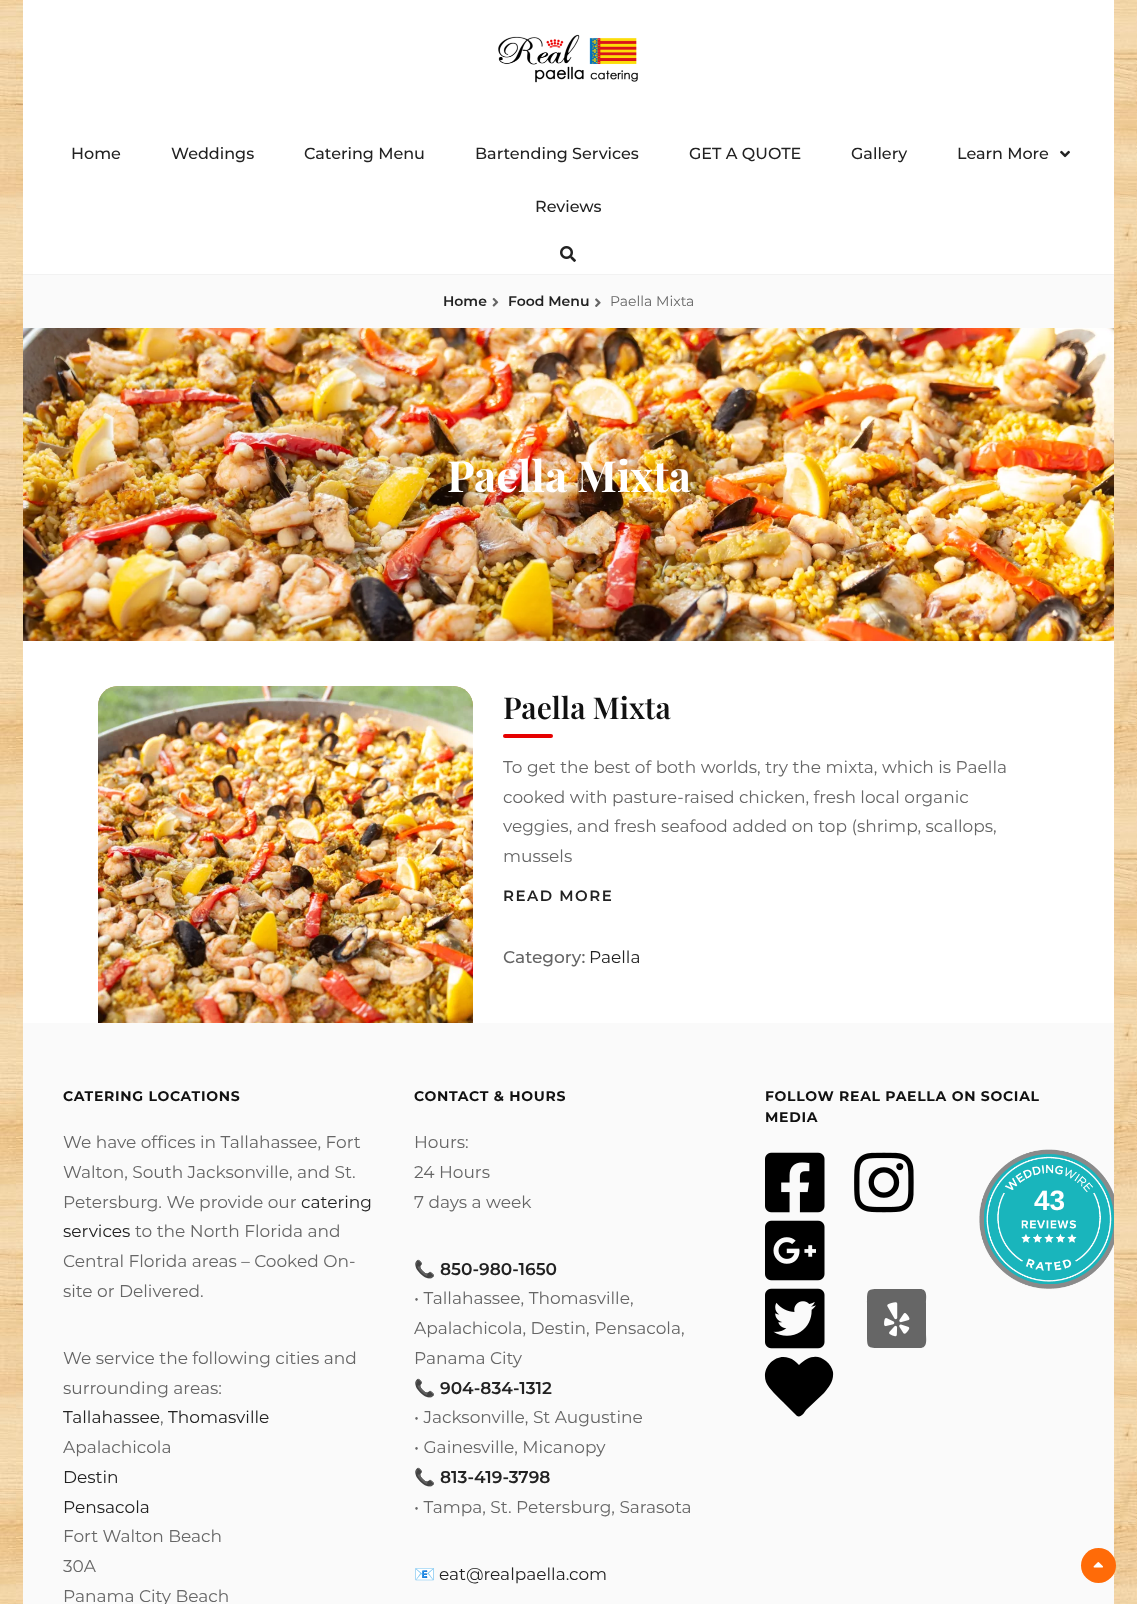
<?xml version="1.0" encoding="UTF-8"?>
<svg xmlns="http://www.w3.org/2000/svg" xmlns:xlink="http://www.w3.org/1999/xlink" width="1137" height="1604">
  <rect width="100%" height="100%" fill="#ffffff" />
  <image x="0" y="0" width="1137" height="1604" xlink:href="image1.png" />
  <rect x="23" width="1091" height="1023" fill="#ffffff" />
  <image x="498" y="34" width="140" height="49" xlink:href="image2.png" />
  <image x="1060" y="150" width="10" height="8" xlink:href="image3.png" />
  <image x="560" y="246" width="16" height="16" xlink:href="image4.png" />
  <rect x="23" y="275" width="1091" height="53" fill="#fafafa" />
  <rect x="23" y="274" width="1091" height="1" fill="#f2f2f2" />
  <image x="492" y="297" width="7" height="10" xlink:href="image5.png" />
  <image x="595" y="298" width="6" height="9" xlink:href="image6.png" />
  <image x="23" y="328" width="1091" height="313" xlink:href="image7.png" />
  <rect x="98" y="686" width="375" height="374" rx="20" fill="#c5985e" />
  <image x="98" y="686" width="375" height="337" xlink:href="image8.png" />
  <rect x="503" y="734" width="50" height="4" rx="2" fill="#e60000" />
  <rect x="23" y="1023" width="1091" height="581" fill="#fafafa" />
  <image x="765" y="1152" width="60" height="61" xlink:href="image9.png" />
  <image x="854" y="1152" width="60" height="61" xlink:href="image10.png" />
  <image x="765" y="1220" width="60" height="61" xlink:href="image11.png" />
  <image x="765" y="1288" width="60" height="61" xlink:href="image12.png" />
  <path d="M 920 1289 c 8 0 6 9 6 14 v 31 c 0 5 2 14 -6 14 h -39 c -14 0 -14 0 -14 -14 v -31 c 0 -14 0 -14 14 -14 z" fill="#666666" />
  <image x="884" y="1302" width="26" height="35" xlink:href="image13.png" />
  <path d="M 826 1361 c 4 3 6 7 7 11 c 1 9 -4 15 -9 21 l -18 17 c -2 3 -5 8 -9 6 l -14 -14 c -5 -5 -14 -13 -17 -20 c -5 -14 9 -29 23 -24 c 4 1 7 4 10 7 c 8 -8 18 -12 27 -4 z" fill="#000000" />
  <image x="979" y="1149" width="135" height="140" xlink:href="image14.png" />
  <circle cx="1098.5" cy="1565.5" r="17.5" fill="#ff6b08" />
  <image x="1093" y="1562" width="10" height="6" xlink:href="image15.png" />
  <text x="71" y="159" style="font-family: Montserrat; font-size: 16px; font-weight: 500; fill: #222222">Home</text>
  <text x="171" y="159" style="font-family: Montserrat; font-size: 16px; font-weight: 500; fill: #222222">Weddings</text>
  <text x="304" y="159" style="font-family: Montserrat; font-size: 16px; font-weight: 500; fill: #222222">Catering Menu</text>
  <text x="475" y="159" style="font-family: Montserrat; font-size: 16px; font-weight: 500; fill: #222222">Bartending Services</text>
  <text x="689" y="159" style="font-family: Montserrat; font-size: 16px; font-weight: 500; fill: #222222">GET A QUOTE</text>
  <text x="851" y="159" style="font-family: Montserrat; font-size: 16px; font-weight: 500; fill: #222222">Gallery</text>
  <text x="957" y="159" style="font-family: Montserrat; font-size: 16px; font-weight: 500; fill: #222222">Learn More</text>
  <text x="535" y="212" style="font-family: Montserrat; font-size: 16px; font-weight: 500; fill: #222222">Reviews</text>
  <text x="443" y="306" style="font-family: Montserrat; font-size: 14px; font-weight: 600; fill: #222222">Home</text>
  <text x="508" y="306" style="font-family: Montserrat; font-size: 14px; font-weight: 600; fill: #222222">Food Menu</text>
  <text x="610" y="306" style="font-family: Montserrat; font-size: 14px; fill: #666666">Paella Mixta</text>
  <text x="447" y="492" style="font-family: Playfair Display; font-size: 43px; font-weight: bold; fill: #ffffff">Paella Mixta</text>
  <text x="503" y="719" style="font-family: Playfair Display; font-size: 30px; font-weight: 600; fill: #111111">Paella Mixta</text>
  <text x="503" y="773" style="font-family: Montserrat; font-size: 17px; fill: #666666">To get the best of both worlds, try the mixta, which is Paella</text>
  <text x="503" y="803" style="font-family: Montserrat; font-size: 17px; fill: #666666">cooked with pasture-raised chicken, fresh local organic</text>
  <text x="503" y="832" style="font-family: Montserrat; font-size: 17px; fill: #666666">veggies, and fresh seafood added on top (shrimp, scallops,</text>
  <text x="503" y="862" style="font-family: Montserrat; font-size: 17px; fill: #666666">mussels</text>
  <text x="503" y="901" style="font-family: Montserrat; font-size: 15px; font-weight: 600; letter-spacing: 1.5px; fill: #222222">READ MORE</text>
  <text x="503" y="963" style="font-family: Montserrat; font-size: 17px; font-weight: 500; fill: #666666">Category:</text>
  <text x="589" y="963" style="font-family: Montserrat; font-size: 17px; fill: #222222">Paella</text>
  <text x="63" y="1101" style="font-family: Montserrat; font-size: 14px; font-weight: bold; letter-spacing: 0.7px; fill: #111111">CATERING LOCATIONS</text>
  <text x="63" y="1148" style="font-family: Montserrat; font-size: 17px; fill: #666666">We have offices in Tallahassee, Fort</text>
  <text x="63" y="1178" style="font-family: Montserrat; font-size: 17px; fill: #666666">Walton, South Jacksonville, and St.</text>
  <text x="63" y="1208" style="font-family: Montserrat; font-size: 17px; fill: #666666">Petersburg. We provide our</text>
  <text x="301" y="1208" style="font-family: Montserrat; font-size: 17px; fill: #222222">catering</text>
  <text x="63" y="1237" style="font-family: Montserrat; font-size: 17px; fill: #222222">services</text>
  <text x="135" y="1237" style="font-family: Montserrat; font-size: 17px; fill: #666666">to the North Florida and</text>
  <text x="63" y="1267" style="font-family: Montserrat; font-size: 17px; fill: #666666">Central Florida areas – Cooked On-</text>
  <text x="63" y="1297" style="font-family: Montserrat; font-size: 17px; fill: #666666">site or Delivered.</text>
  <text x="63" y="1364" style="font-family: Montserrat; font-size: 17px; fill: #666666">We service the following cities and</text>
  <text x="63" y="1394" style="font-family: Montserrat; font-size: 17px; fill: #666666">surrounding areas:</text>
  <text x="63" y="1423" style="font-family: Montserrat; font-size: 17px; fill: #222222">Tallahassee</text>
  <text x="160" y="1423" style="font-family: Montserrat; font-size: 17px; fill: #666666">,</text>
  <text x="168" y="1423" style="font-family: Montserrat; font-size: 17px; fill: #222222">Thomasville</text>
  <text x="63" y="1453" style="font-family: Montserrat; font-size: 17px; fill: #666666">Apalachicola</text>
  <text x="63" y="1483" style="font-family: Montserrat; font-size: 17px; fill: #222222">Destin</text>
  <text x="63" y="1513" style="font-family: Montserrat; font-size: 17px; fill: #222222">Pensacola</text>
  <text x="63" y="1542" style="font-family: Montserrat; font-size: 17px; fill: #666666">Fort Walton Beach</text>
  <text x="63" y="1572" style="font-family: Montserrat; font-size: 17px; fill: #666666">30A</text>
  <text x="63" y="1602" style="font-family: Montserrat; font-size: 17px; fill: #666666">Panama City Beach</text>
  <text x="414" y="1101" style="font-family: Montserrat; font-size: 14px; font-weight: bold; letter-spacing: 0.7px; fill: #111111">CONTACT &amp; HOURS</text>
  <text x="414" y="1148" style="font-family: Montserrat; font-size: 17px; fill: #666666">Hours:</text>
  <text x="414" y="1178" style="font-family: Montserrat; font-size: 17px; fill: #666666">24 Hours</text>
  <text x="414" y="1208" style="font-family: Montserrat; font-size: 17px; fill: #666666">7 days a week</text>
  <text x="414" y="1275" style="font-family: Noto Color Emoji; font-size: 17px; font-weight: bold; fill: #666666">📞</text>
  <text x="440" y="1275" style="font-family: Montserrat; font-size: 17px; font-weight: 600; fill: #222222">850-980-1650</text>
  <text x="414" y="1304" style="font-family: Montserrat; font-size: 17px; fill: #666666">• Tallahassee, Thomasville,</text>
  <text x="414" y="1334" style="font-family: Montserrat; font-size: 17px; fill: #666666">Apalachicola, Destin, Pensacola,</text>
  <text x="414" y="1364" style="font-family: Montserrat; font-size: 17px; fill: #666666">Panama City</text>
  <text x="414" y="1394" style="font-family: Noto Color Emoji; font-size: 17px; font-weight: bold; fill: #666666">📞</text>
  <text x="440" y="1394" style="font-family: Montserrat; font-size: 17px; font-weight: 600; fill: #222222">904-834-1312</text>
  <text x="414" y="1423" style="font-family: Montserrat; font-size: 17px; fill: #666666">• Jacksonville, St Augustine</text>
  <text x="414" y="1453" style="font-family: Montserrat; font-size: 17px; fill: #666666">• Gainesville, Micanopy</text>
  <text x="414" y="1483" style="font-family: Noto Color Emoji; font-size: 17px; font-weight: bold; fill: #666666">📞</text>
  <text x="440" y="1483" style="font-family: Montserrat; font-size: 17px; font-weight: 600; fill: #222222">813-419-3798</text>
  <text x="414" y="1513" style="font-family: Montserrat; font-size: 17px; fill: #666666">• Tampa, St. Petersburg, Sarasota</text>
  <text x="414" y="1580" style="font-family: Noto Color Emoji; font-size: 17px; fill: #666666">📧</text>
  <text x="439" y="1580" style="font-family: Montserrat; font-size: 17px; fill: #222222">eat@realpaella.com</text>
  <text x="765" y="1101" style="font-family: Montserrat; font-size: 14px; font-weight: bold; letter-spacing: 0.7px; fill: #111111">FOLLOW REAL PAELLA ON SOCIAL</text>
  <text x="765" y="1122" style="font-family: Montserrat; font-size: 14px; font-weight: bold; letter-spacing: 0.7px; fill: #111111">MEDIA</text>
  <text x="1034" y="1210" style="font-family: Liberation Sans; font-size: 28px; font-weight: bold; fill: #ffffff">43</text>
</svg>
